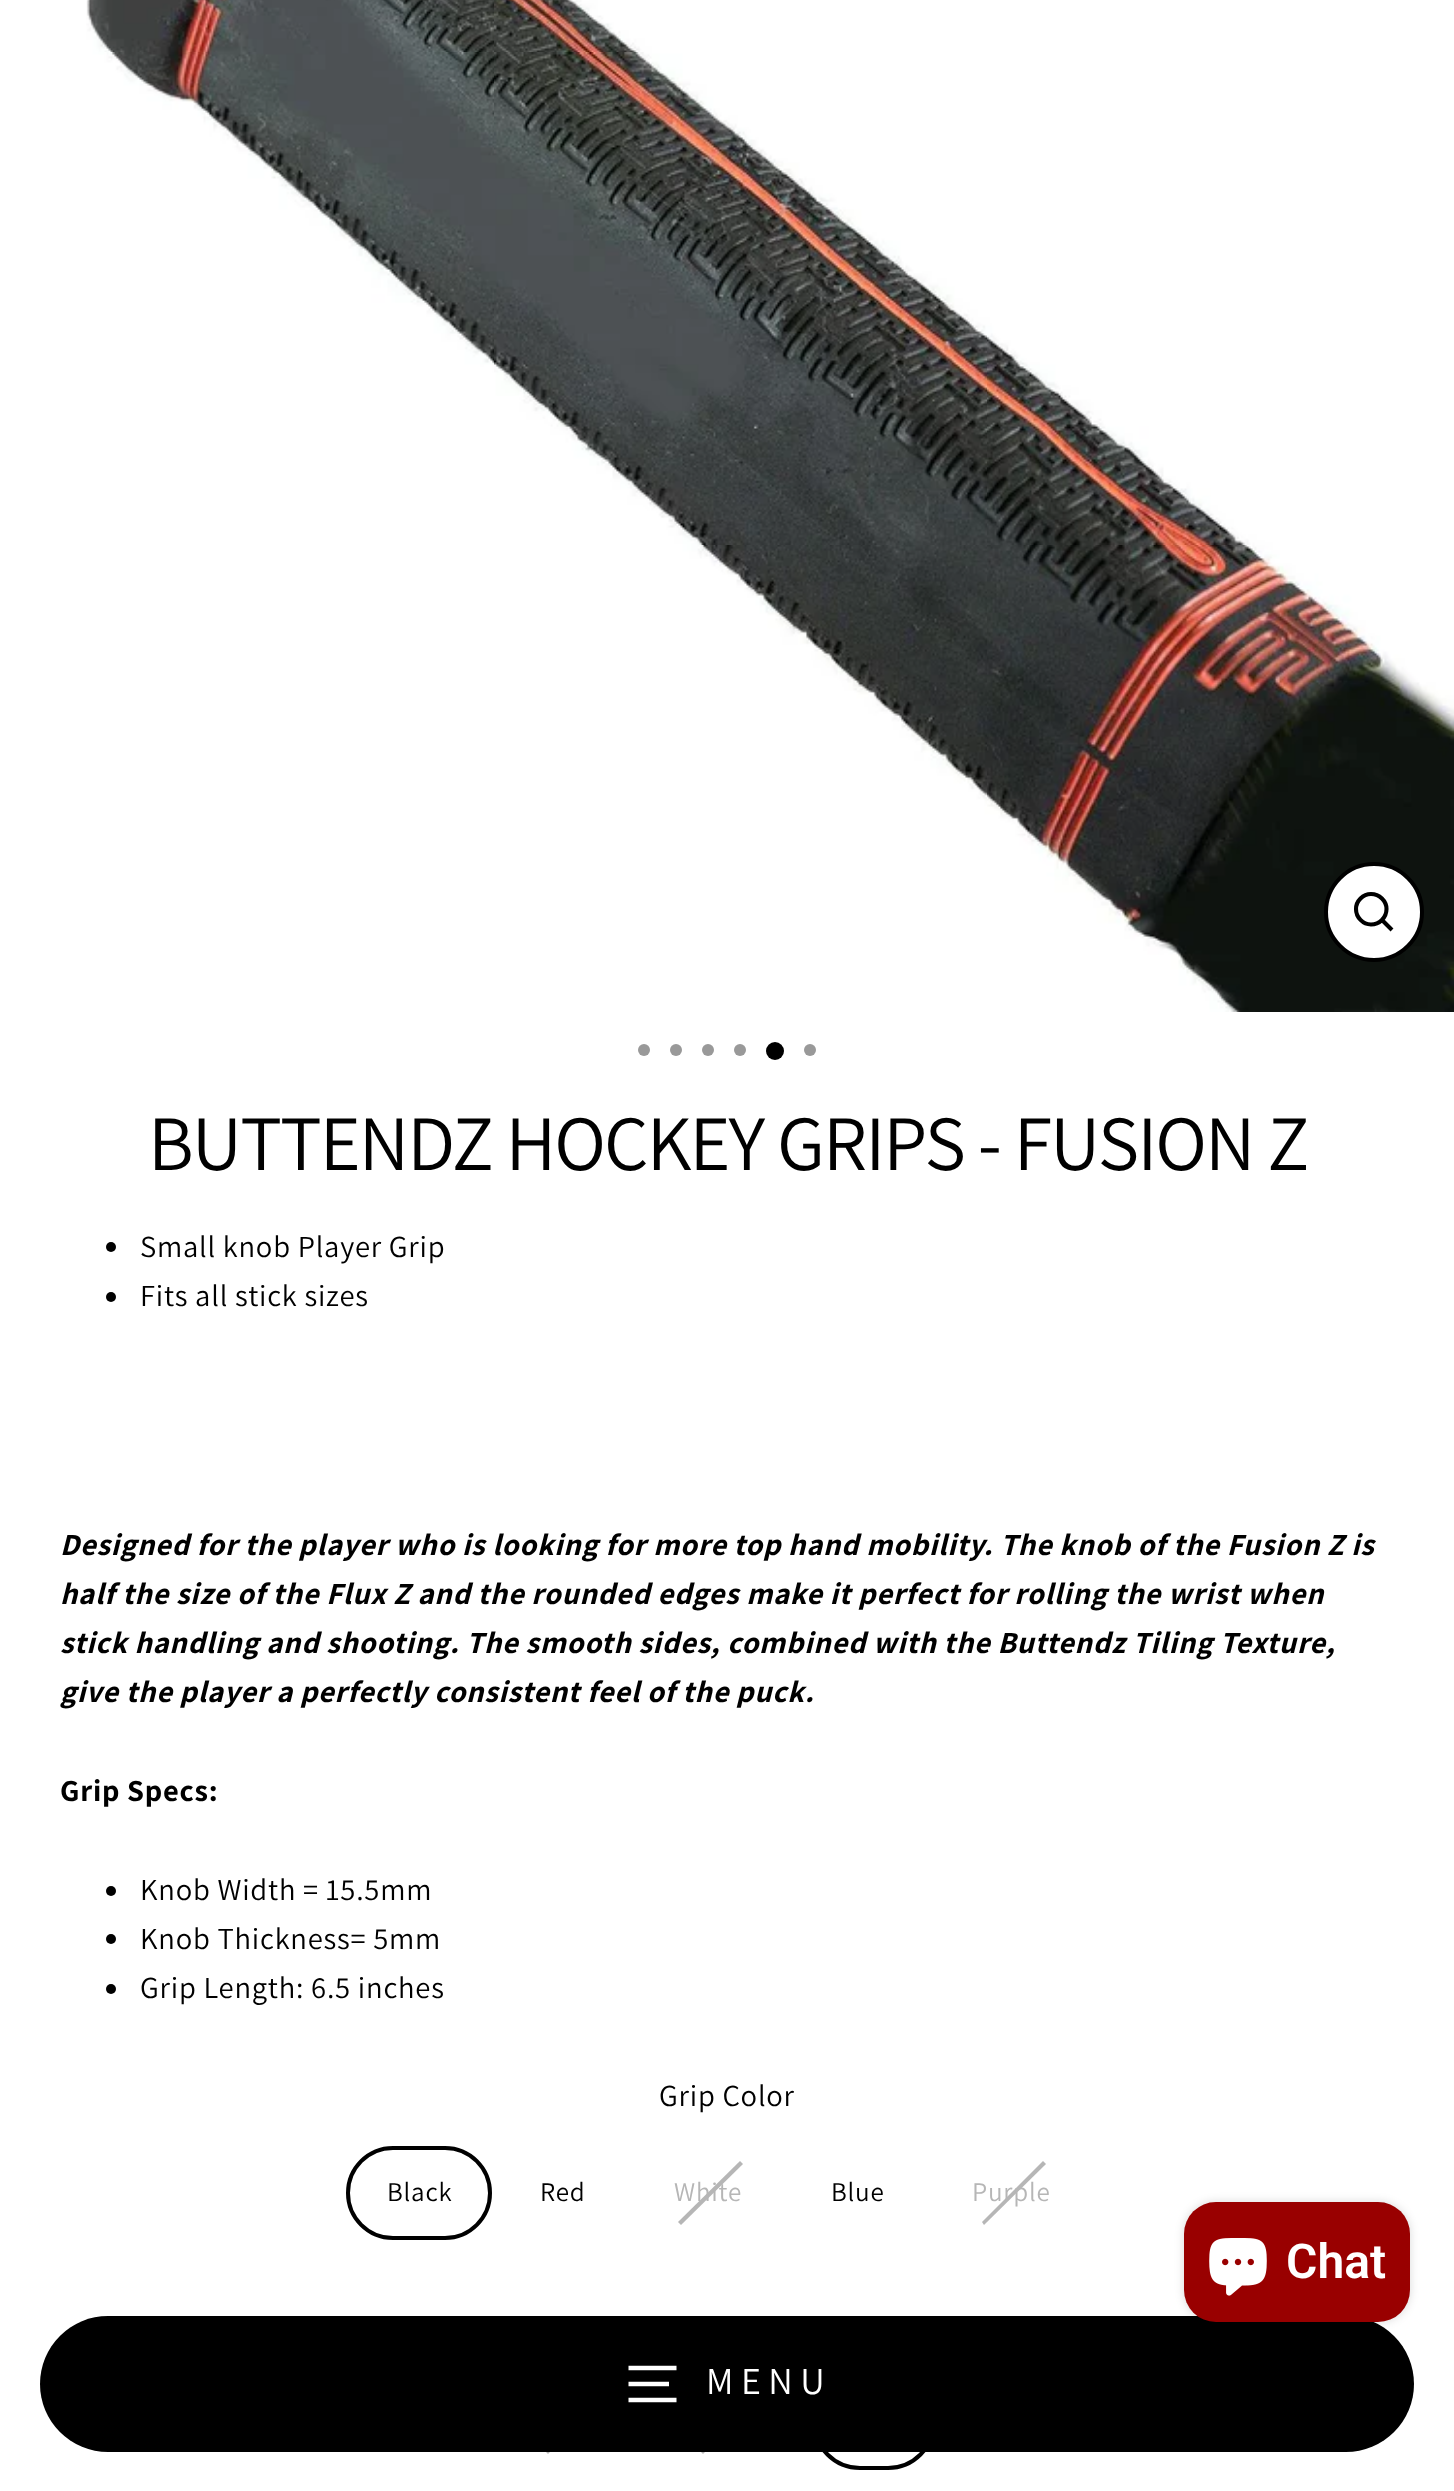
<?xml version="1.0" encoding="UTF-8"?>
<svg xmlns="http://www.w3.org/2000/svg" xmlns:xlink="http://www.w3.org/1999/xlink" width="1454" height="2491">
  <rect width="100%" height="100%" fill="#ffffff" />
  <image x="86" y="0" width="1368" height="1012" xlink:href="image1.png" />
  <circle cx="1374" cy="912" r="48" fill="#ffffff" stroke="#000000" stroke-width="4" />
  <path d="M 1386.5 909 c 0 8.5 -7 15.5 -15.5 15.5 c -8 0 -15 -7 -15 -15.5 c 0 -8 7 -15 15 -15 c 8.5 0 15.5 7 15.5 15 z m 5.5 21 l -10 -10" fill="none" stroke="#000000" stroke-width="4.1" />
  <circle cx="644" cy="1050" r="6" fill="#999999" />
  <circle cx="676" cy="1050" r="6" fill="#999999" />
  <circle cx="708" cy="1050" r="6" fill="#999999" />
  <circle cx="740" cy="1050" r="6" fill="#999999" />
  <circle cx="775" cy="1051" r="9" fill="#000000" />
  <circle cx="810" cy="1050" r="6" fill="#999999" />
  <circle cx="111" cy="1247" r="5" fill="#000000" />
  <circle cx="111" cy="1297" r="5" fill="#000000" />
  <circle cx="111" cy="1891" r="5" fill="#000000" />
  <circle cx="111" cy="1939" r="5" fill="#000000" />
  <circle cx="111" cy="1989" r="5" fill="#000000" />
  <rect x="348" y="2148" width="142" height="90" rx="45" fill="none" stroke="#000000" stroke-width="4" />
  <path d="M 740 2161 l 3 3 l -62 61 l -3 -3 z" fill="#b6b6b6" />
  <path d="M 1043 2161 l 3 3 l -62 61 l -2 -3 z" fill="#b6b6b6" />
  <path d="M 607 2390 l 2 3 l -61 61 l -3 -3 z" fill="#b6b6b6" />
  <path d="M 762 2390 l 3 3 l -62 61 l -3 -3 z" fill="#b6b6b6" />
  <rect x="814" y="2376" width="120" height="92" rx="46" fill="none" stroke="#000000" stroke-width="4" />
  <rect x="40" y="2316" width="1374" height="136" rx="68" fill="#000000" />
  <path d="M 628.5 2368 h 48 m -48 16 h 40.5 m -40.5 16 h 48" fill="none" stroke="#ffffff" stroke-width="4.7" />
  <rect x="1184" y="2202" width="226" height="120" rx="32" fill="#000000" fill-opacity="0.15" filter="blur(5px)" />
  <rect x="1184" y="2202" width="226" height="120" rx="32" fill="#990000" />
  <image x="1209" y="2238" width="58" height="58" xlink:href="image2.png" />
  <text x="148" y="1170" style="font-family: Assistant; font-size: 78.25px; letter-spacing: -1.95px; fill: #000000">BUTTENDZ HOCKEY GRIPS - FUSION Z</text>
  <text x="140" y="1257" style="font-family: Assistant; font-size: 30.6px; letter-spacing: 0.77px; fill: #000000">Small knob Player Grip</text>
  <text x="140" y="1306" style="font-family: Assistant; font-size: 30.6px; letter-spacing: 0.77px; fill: #000000">Fits all stick sizes</text>
  <text x="60" y="1555" style="font-family: Assistant; font-size: 30.6px; font-weight: bold; font-style: italic; letter-spacing: 0.77px; fill: #000000">Designed for the player who is looking for more top hand mobility. The knob of the Fusion Z is</text>
  <text x="60" y="1604" style="font-family: Assistant; font-size: 30.6px; font-weight: bold; font-style: italic; letter-spacing: 0.77px; fill: #000000">half the size of the Flux Z and the rounded edges make it perfect for rolling the wrist when</text>
  <text x="60" y="1653" style="font-family: Assistant; font-size: 30.6px; font-weight: bold; font-style: italic; letter-spacing: 0.77px; fill: #000000">stick handling and shooting. The smooth sides, combined with the Buttendz Tiling Texture,</text>
  <text x="60" y="1702" style="font-family: Assistant; font-size: 30.6px; font-weight: bold; font-style: italic; letter-spacing: 0.77px; fill: #000000">give the player a perfectly consistent feel of the puck.</text>
  <text x="60" y="1801" style="font-family: Assistant; font-size: 30.6px; font-weight: bold; letter-spacing: 0.77px; fill: #000000">Grip Specs:</text>
  <text x="140" y="1900" style="font-family: Assistant; font-size: 30.6px; letter-spacing: 0.77px; fill: #000000">Knob Width = 15.5mm</text>
  <text x="140" y="1949" style="font-family: Assistant; font-size: 30.6px; letter-spacing: 0.77px; fill: #000000">Knob Thickness= 5mm</text>
  <text x="140" y="1998" style="font-family: Assistant; font-size: 30.6px; letter-spacing: 0.77px; fill: #000000">Grip Length: 6.5 inches</text>
  <text x="659" y="2106" style="font-family: Assistant; font-size: 30.6px; letter-spacing: 0.77px; fill: #000000">Grip Color</text>
  <text x="387" y="2201" style="font-family: Assistant; font-size: 27px; letter-spacing: 0.77px; fill: #000000">Black</text>
  <text x="540" y="2201" style="font-family: Assistant; font-size: 27px; letter-spacing: 0.77px; fill: #000000">Red</text>
  <text x="674" y="2201" style="font-family: Assistant; font-size: 27px; letter-spacing: 0.77px; fill: #b6b6b6">White</text>
  <text x="831" y="2201" style="font-family: Assistant; font-size: 27px; letter-spacing: 0.77px; fill: #000000">Blue</text>
  <text x="972" y="2201" style="font-family: Assistant; font-size: 27px; letter-spacing: 0.77px; fill: #b6b6b6">Purple</text>
  <text x="706" y="2394" style="font-family: Assistant; font-size: 38px; letter-spacing: 7.5px; fill: #ffffff">MENU</text>
  <text x="1286" y="2278" style="font-family: Roboto; font-size: 48px; font-weight: 600; fill: #ffffff">Chat</text>
</svg>
